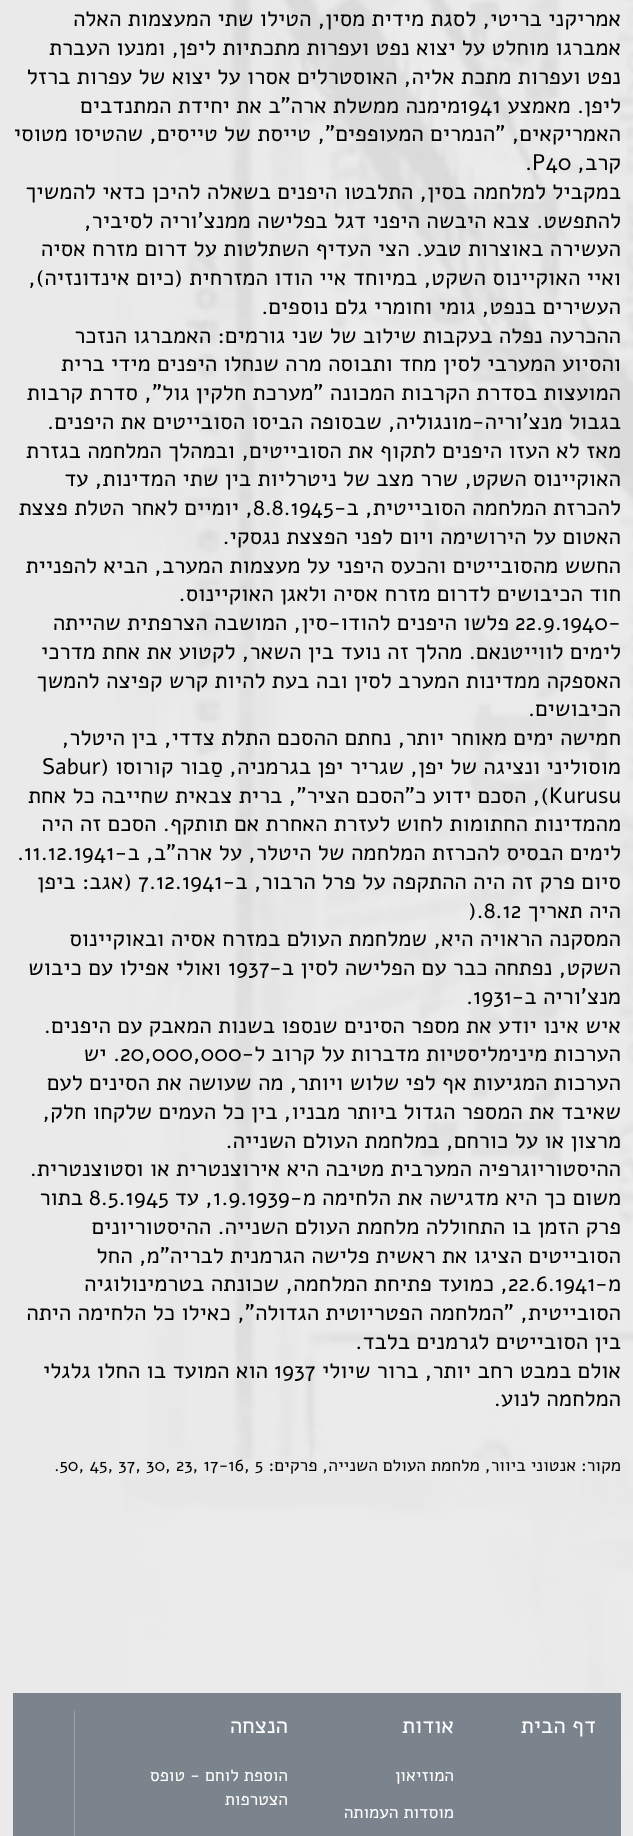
<?xml version="1.0" encoding="UTF-8"?>
<svg xmlns="http://www.w3.org/2000/svg" xmlns:xlink="http://www.w3.org/1999/xlink" width="633" height="1836">
  <rect width="100%" height="100%" fill="#ffffff" />
  <image x="0" y="0" width="633" height="1836" xlink:href="image1.png" />
  <rect x="13" y="1693" width="608" height="143" fill="#7b848d" />
  <rect x="74" y="1711" width="1" height="125" fill="#9da3a9" />
  <text x="621" y="26" style="font-family: Alef; font-size: 22.5px; direction: rtl; fill: #000000">אמריקני בריטי, לסגת מידית מסין, הטילו שתי המעצמות האלה</text>
  <text x="621" y="55" style="font-family: Alef; font-size: 22.5px; direction: rtl; fill: #000000">אמברגו מוחלט על יצוא נפט ועפרות מתכתיות ליפן, ומנעו העברת</text>
  <text x="621" y="84" style="font-family: Alef; font-size: 22.5px; direction: rtl; fill: #000000">נפט ועפרות מתכת אליה, האוסטרלים אסרו על יצוא של עפרות ברזל</text>
  <text x="621" y="113" style="font-family: Alef; font-size: 22.5px; direction: rtl; fill: #000000">ליפן. מאמצע</text>
  <text x="460" y="113" style="font-family: Alef; font-size: 22.5px; fill: #000000">1941</text>
  <text x="460" y="113" style="font-family: Alef; font-size: 22.5px; direction: rtl; fill: #000000">מימנה ממשלת ארה"ב את יחידת המתנדבים</text>
  <text x="621" y="141" style="font-family: Alef; font-size: 22.5px; direction: rtl; fill: #000000">האמריקאים, "הנמרים המעופפים", טייסת של טייסים, שהטיסו מטוסי</text>
  <text x="621" y="170" style="font-family: Alef; font-size: 22.5px; direction: rtl; fill: #000000">קרב,</text>
  <text x="532" y="170" style="font-family: Alef; font-size: 22.5px; fill: #000000">P40</text>
  <text x="525" y="170" style="font-family: Alef; font-size: 22.5px; fill: #000000">.</text>
  <text x="621" y="199" style="font-family: Alef; font-size: 22.5px; direction: rtl; fill: #000000">במקביל למלחמה בסין, התלבטו היפנים בשאלה להיכן כדאי להמשיך</text>
  <text x="621" y="228" style="font-family: Alef; font-size: 22.5px; direction: rtl; fill: #000000">להתפשט. צבא היבשה היפני דגל בפלישה ממנצ'וריה לסיביר,</text>
  <text x="621" y="256" style="font-family: Alef; font-size: 22.5px; direction: rtl; fill: #000000">העשירה באוצרות טבע. הצי העדיף השתלטות על דרום מזרח אסיה</text>
  <text x="621" y="285" style="font-family: Alef; font-size: 22.5px; direction: rtl; fill: #000000">ואיי האוקיינוס השקט, במיוחד איי הודו המזרחית (כיום אינדונזיה),</text>
  <text x="621" y="314" style="font-family: Alef; font-size: 22.5px; direction: rtl; fill: #000000">העשירים בנפט, גומי וחומרי גלם נוספים.</text>
  <text x="621" y="343" style="font-family: Alef; font-size: 22.5px; direction: rtl; fill: #000000">ההכרעה נפלה בעקבות שילוב של שני גורמים: האמברגו הנזכר</text>
  <text x="621" y="371" style="font-family: Alef; font-size: 22.5px; direction: rtl; fill: #000000">והסיוע המערבי לסין מחד ותבוסה מרה שנחלו היפנים מידי ברית</text>
  <text x="621" y="400" style="font-family: Alef; font-size: 22.5px; direction: rtl; fill: #000000">המועצות בסדרת הקרבות המכונה "מערכת חלקין גול", סדרת קרבות</text>
  <text x="621" y="429" style="font-family: Alef; font-size: 22.5px; direction: rtl; fill: #000000">בגבול מנצ'וריה-מונגוליה, שבסופה הביסו הסובייטים את היפנים.</text>
  <text x="621" y="458" style="font-family: Alef; font-size: 22.5px; direction: rtl; fill: #000000">מאז לא העזו היפנים לתקוף את הסובייטים, ובמהלך המלחמה בגזרת</text>
  <text x="621" y="486" style="font-family: Alef; font-size: 22.5px; direction: rtl; fill: #000000">האוקיינוס השקט, שרר מצב של ניטרליות בין שתי המדינות, עד</text>
  <text x="621" y="515" style="font-family: Alef; font-size: 22.5px; direction: rtl; fill: #000000">להכרזת המלחמה הסובייטית, ב-</text>
  <text x="253" y="515" style="font-family: Alef; font-size: 22.5px; fill: #000000">8.8.1945</text>
  <text x="253" y="515" style="font-family: Alef; font-size: 22.5px; direction: rtl; fill: #000000">, יומיים לאחר הטלת פצצת</text>
  <text x="621" y="544" style="font-family: Alef; font-size: 22.5px; direction: rtl; fill: #000000">האטום על הירושימה ויום לפני הפצצת נגסקי.</text>
  <text x="621" y="573" style="font-family: Alef; font-size: 22.5px; direction: rtl; fill: #000000">החשש מהסובייטים והכעס היפני על מעצמות המערב, הביא להפניית</text>
  <text x="621" y="601" style="font-family: Alef; font-size: 22.5px; direction: rtl; fill: #000000">חוד הכיבושים לדרום מזרח אסיה ולאגן האוקיינוס.</text>
  <text x="515" y="630" style="font-family: Alef; font-size: 22.5px; fill: #000000">22.9.1940-</text>
  <text x="509" y="630" style="font-family: Alef; font-size: 22.5px; direction: rtl; fill: #000000">פלשו היפנים להודו-סין, המושבה הצרפתית שהייתה</text>
  <text x="621" y="659" style="font-family: Alef; font-size: 22.5px; direction: rtl; fill: #000000">לימים לווייטנאם. מהלך זה נועד בין השאר, לקטוע את אחת מדרכי</text>
  <text x="621" y="688" style="font-family: Alef; font-size: 22.5px; direction: rtl; fill: #000000">האספקה ממדינות המערב לסין ובה בעת להיות קרש קפיצה להמשך</text>
  <text x="621" y="716" style="font-family: Alef; font-size: 22.5px; direction: rtl; fill: #000000">הכיבושים.</text>
  <text x="621" y="745" style="font-family: Alef; font-size: 22.5px; direction: rtl; fill: #000000">חמישה ימים מאוחר יותר, נחתם ההסכם התלת צדדי, בין היטלר,</text>
  <text x="621" y="774" style="font-family: Alef; font-size: 22.5px; direction: rtl; fill: #000000">מוסוליני ונציגה של יפן, שגריר יפן בגרמניה, סַבור קורוסו (</text>
  <text x="42" y="774" style="font-family: Alef; font-size: 22.5px; fill: #000000">Sabur</text>
  <text x="549" y="803" style="font-family: Alef; font-size: 22.5px; fill: #000000">Kurusu</text>
  <text x="549" y="803" style="font-family: Alef; font-size: 22.5px; direction: rtl; fill: #000000">), הסכם ידוע כ"הסכם הציר", ברית צבאית שחייבה כל אחת</text>
  <text x="621" y="831" style="font-family: Alef; font-size: 22.5px; direction: rtl; fill: #000000">מהמדינות החתומות לחוש לעזרת האחרת אם תותקף. הסכם זה היה</text>
  <text x="621" y="860" style="font-family: Alef; font-size: 22.5px; direction: rtl; fill: #000000">לימים הבסיס להכרזת המלחמה של היטלר, על ארה"ב, ב-</text>
  <text x="17" y="860" style="font-family: Alef; font-size: 22.5px; fill: #000000">.11.12.1941</text>
  <text x="621" y="889" style="font-family: Alef; font-size: 22.5px; direction: rtl; fill: #000000">סיום פרק זה היה ההתקפה על פרל הרבור, ב-</text>
  <text x="138" y="889" style="font-family: Alef; font-size: 22.5px; fill: #000000">7.12.1941</text>
  <text x="132" y="889" style="font-family: Alef; font-size: 22.5px; direction: rtl; fill: #000000">(אגב: ביפן</text>
  <text x="621" y="918" style="font-family: Alef; font-size: 22.5px; direction: rtl; fill: #000000">היה תאריך</text>
  <text x="468" y="918" style="font-family: Alef; font-size: 22.5px; fill: #000000">).8.12</text>
  <text x="621" y="946" style="font-family: Alef; font-size: 22.5px; direction: rtl; fill: #000000">המסקנה הראויה היא, שמלחמת העולם במזרח אסיה ובאוקיינוס</text>
  <text x="621" y="975" style="font-family: Alef; font-size: 22.5px; direction: rtl; fill: #000000">השקט, נפתחה כבר עם הפלישה לסין ב-</text>
  <text x="228" y="975" style="font-family: Alef; font-size: 22.5px; fill: #000000">1937</text>
  <text x="221" y="975" style="font-family: Alef; font-size: 22.5px; direction: rtl; fill: #000000">ואולי אפילו עם כיבוש</text>
  <text x="621" y="1004" style="font-family: Alef; font-size: 22.5px; direction: rtl; fill: #000000">מנצ'וריה ב-</text>
  <text x="466" y="1004" style="font-family: Alef; font-size: 22.5px; fill: #000000">.1931</text>
  <text x="621" y="1033" style="font-family: Alef; font-size: 22.5px; direction: rtl; fill: #000000">איש אינו יודע את מספר הסינים שנספו בשנות המאבק עם היפנים.</text>
  <text x="621" y="1061" style="font-family: Alef; font-size: 22.5px; direction: rtl; fill: #000000">הערכות מינימליסטיות מדברות על קרוב ל-</text>
  <text x="120" y="1061" style="font-family: Alef; font-size: 22.5px; fill: #000000">20,000,000</text>
  <text x="120" y="1061" style="font-family: Alef; font-size: 22.5px; direction: rtl; fill: #000000">. יש</text>
  <text x="621" y="1090" style="font-family: Alef; font-size: 22.5px; direction: rtl; fill: #000000">הערכות המגיעות אף לפי שלוש ויותר, מה שעושה את הסינים לעם</text>
  <text x="621" y="1119" style="font-family: Alef; font-size: 22.5px; direction: rtl; fill: #000000">שאיבד את המספר הגדול ביותר מבניו, בין כל העמים שלקחו חלק,</text>
  <text x="621" y="1148" style="font-family: Alef; font-size: 22.5px; direction: rtl; fill: #000000">מרצון או על כורחם, במלחמת העולם השנייה.</text>
  <text x="621" y="1176" style="font-family: Alef; font-size: 22.5px; direction: rtl; fill: #000000">ההיסטוריוגרפיה המערבית מטיבה היא אירוצנטרית או וסטוצנטרית.</text>
  <text x="621" y="1205" style="font-family: Alef; font-size: 22.5px; direction: rtl; fill: #000000">משום כך היא מדגישה את הלחימה מ-</text>
  <text x="213" y="1205" style="font-family: Alef; font-size: 22.5px; fill: #000000">1.9.1939</text>
  <text x="213" y="1205" style="font-family: Alef; font-size: 22.5px; direction: rtl; fill: #000000">, עד</text>
  <text x="89" y="1205" style="font-family: Alef; font-size: 22.5px; fill: #000000">8.5.1945</text>
  <text x="83" y="1205" style="font-family: Alef; font-size: 22.5px; direction: rtl; fill: #000000">בתור</text>
  <text x="621" y="1234" style="font-family: Alef; font-size: 22.5px; direction: rtl; fill: #000000">פרק הזמן בו התחוללה מלחמת העולם השנייה. ההיסטוריונים</text>
  <text x="621" y="1263" style="font-family: Alef; font-size: 22.5px; direction: rtl; fill: #000000">הסובייטים הציגו את ראשית פלישה הגרמנית לבריה"מ, החל</text>
  <text x="621" y="1291" style="font-family: Alef; font-size: 22.5px; direction: rtl; fill: #000000">מ-</text>
  <text x="508" y="1291" style="font-family: Alef; font-size: 22.5px; fill: #000000">22.6.1941</text>
  <text x="508" y="1291" style="font-family: Alef; font-size: 22.5px; direction: rtl; fill: #000000">, כמועד פתיחת המלחמה, שכונתה בטרמינולוגיה</text>
  <text x="621" y="1320" style="font-family: Alef; font-size: 22.5px; direction: rtl; fill: #000000">הסובייטית, "המלחמה הפטריוטית הגדולה", כאילו כל הלחימה היתה</text>
  <text x="621" y="1349" style="font-family: Alef; font-size: 22.5px; direction: rtl; fill: #000000">בין הסובייטים לגרמנים בלבד.</text>
  <text x="621" y="1378" style="font-family: Alef; font-size: 22.5px; direction: rtl; fill: #000000">אולם במבט רחב יותר, ברור שיולי</text>
  <text x="274" y="1378" style="font-family: Alef; font-size: 22.5px; fill: #000000">1937</text>
  <text x="268" y="1378" style="font-family: Alef; font-size: 22.5px; direction: rtl; fill: #000000">הוא המועד בו החלו גלגלי</text>
  <text x="621" y="1406" style="font-family: Alef; font-size: 22.5px; direction: rtl; fill: #000000">המלחמה לנוע.</text>
  <text x="621" y="1471" style="font-family: Alef; font-size: 17.5px; direction: rtl; fill: #000000">מקור: אנטוני ביוור, מלחמת העולם השנייה, פרקים:</text>
  <text x="54" y="1471" style="font-family: Alef; font-size: 17.5px; fill: #000000">.50, 45, 37, 30, 23, 17-16, 5</text>
  <text x="596" y="1733" style="font-family: Alef; font-size: 22.5px; direction: rtl; fill: #ffffff">דף הבית</text>
  <text x="454" y="1733" style="font-family: Alef; font-size: 22.5px; direction: rtl; fill: #ffffff">אודות</text>
  <text x="454" y="1781" style="font-family: Alef; font-size: 17.5px; direction: rtl; fill: #ffffff">המוזיאון</text>
  <text x="454" y="1818" style="font-family: Alef; font-size: 17.5px; direction: rtl; fill: #ffffff">מוסדות העמותה</text>
  <text x="288" y="1733" style="font-family: Alef; font-size: 22.5px; direction: rtl; fill: #ffffff">הנצחה</text>
  <text x="288" y="1781" style="font-family: Alef; font-size: 17.5px; direction: rtl; fill: #ffffff">הוספת לוחם - טופס</text>
  <text x="288" y="1805" style="font-family: Alef; font-size: 17.5px; direction: rtl; fill: #ffffff">הצטרפות</text>
</svg>
